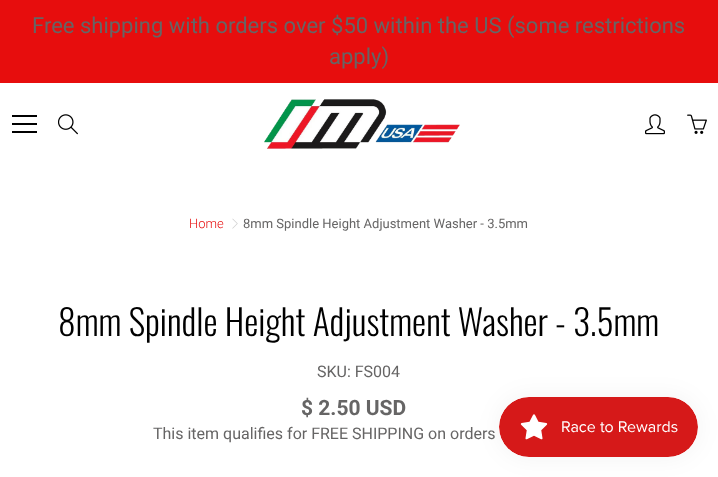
<?xml version="1.0" encoding="UTF-8"?>
<svg xmlns="http://www.w3.org/2000/svg" xmlns:xlink="http://www.w3.org/1999/xlink" width="718" height="477">
  <rect width="100%" height="100%" fill="#ffffff" />
  <rect width="718" height="83" fill="#e70d0d" />
  <rect x="12" y="123" width="25" height="2" fill="#000000" />
  <rect x="12" y="115" width="25" height="2" fill="#000000" />
  <rect x="12" y="131" width="25" height="2" fill="#000000" />
  <image x="58" y="114" width="20" height="21" xlink:href="image1.png" />
  <image x="264" y="99" width="196" height="50" xlink:href="image2.png" />
  <image x="645" y="114" width="20" height="21" xlink:href="image3.png" />
  <image x="687" y="114" width="20" height="20" xlink:href="image4.png" />
  <image x="232" y="218" width="6" height="11" xlink:href="image5.png" />
  <rect x="499" y="397" width="199" height="60" rx="30" fill="#000000" fill-opacity="0.05" filter="blur(12.5px)" />
  <image x="499" y="397" width="199" height="60" xlink:href="image6.png" />
  <text x="32" y="33" style="font-family: Roboto; font-size: 22px; fill: #666565">Free shipping with orders over $50 within the US (some restrictions</text>
  <text x="329" y="64" style="font-family: Roboto; font-size: 22px; fill: #666565">apply)</text>
  <text x="189" y="228" style="font-family: Roboto; font-size: 13px; font-weight: 300; fill: #e70d0d">Home</text>
  <text x="243" y="228" style="font-family: Roboto; font-size: 13px; fill: #666565">8mm Spindle Height Adjustment Washer - 3.5mm</text>
  <text x="58" y="336" style="font-family: Oswald; font-size: 35.5px; font-weight: 300; fill: #000000">8mm Spindle Height Adjustment Washer - 3.5mm</text>
  <text x="317" y="377" style="font-family: Roboto; font-size: 16px; fill: #666565">SKU: FS004</text>
  <text x="301" y="415" style="font-family: Roboto; font-size: 21px; font-weight: bold; fill: #666565">$ 2.50 USD</text>
  <text x="153" y="439" style="font-family: Roboto; font-size: 16px; fill: #666565">This item qualifies for FREE SHIPPING on orders</text>
</svg>
